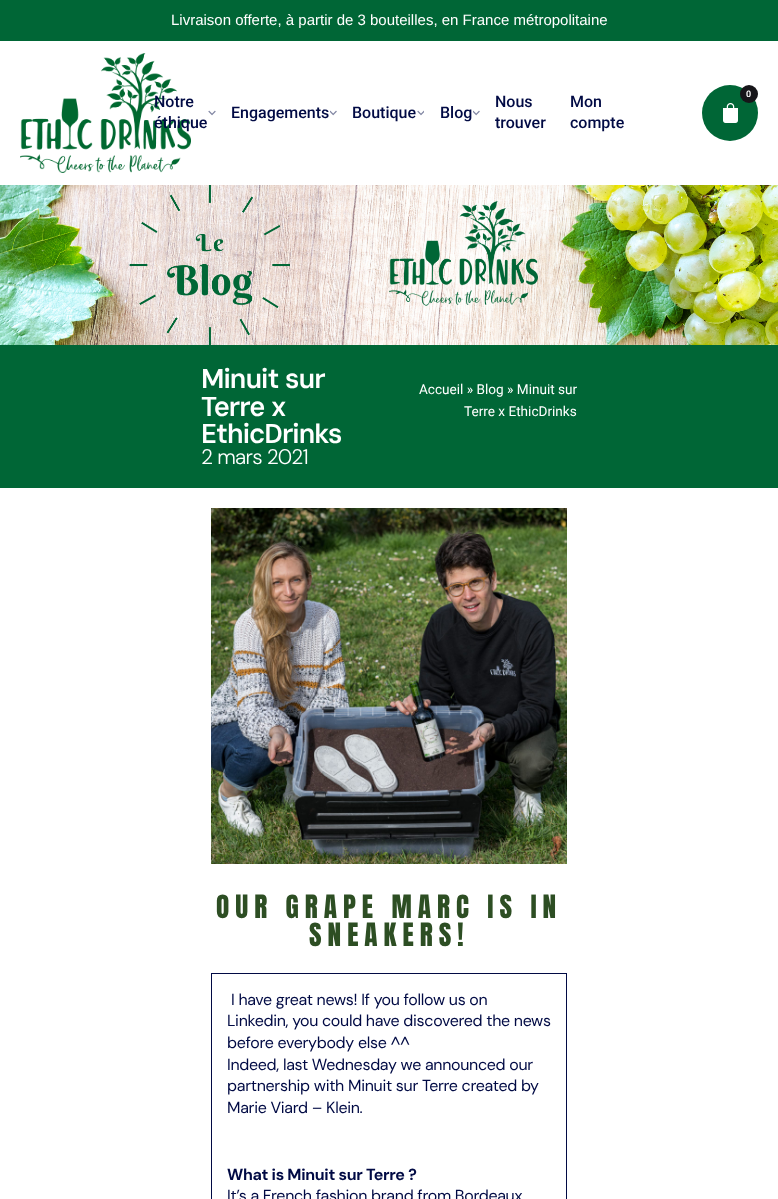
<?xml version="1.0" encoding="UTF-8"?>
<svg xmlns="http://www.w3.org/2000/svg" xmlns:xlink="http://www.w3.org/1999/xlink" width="778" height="1199">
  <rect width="100%" height="100%" fill="#ffffff" />
  <rect width="778" height="41" fill="#006636" />
  <image x="20" y="53" width="171" height="120" xlink:href="image1.png" />
  <circle cx="730" cy="113" r="28" fill="#006636" />
  <image x="723" y="103" width="15" height="20" xlink:href="image2.png" />
  <circle cx="749" cy="94" r="9" fill="#161519" />
  <image x="208" y="110" width="8" height="6" xlink:href="image3.png" />
  <image x="330" y="110" width="7" height="6" xlink:href="image4.png" />
  <image x="417" y="110" width="7" height="6" xlink:href="image5.png" />
  <image x="473" y="110" width="7" height="6" xlink:href="image6.png" />
  <image x="0" y="185" width="778" height="160" xlink:href="image7.png" />
  <rect y="345" width="778" height="143" fill="#006636" />
  <image x="211" y="508" width="356" height="356" xlink:href="image8.png" />
  <rect x="211.5" y="973.5" width="355" height="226" fill="none" stroke="#010a44" />
  <text x="171" y="25" style="font-family: Liberation Sans; font-size: 15px; fill: #ffffff">Livraison offerte, à partir de 3 bouteilles, en France métropolitaine</text>
  <text x="746" y="97" style="font-family: Roboto; font-size: 9px; font-weight: 600; fill: #ffffff">0</text>
  <text x="154" y="107" style="font-family: Roboto; font-size: 16px; font-weight: 500; fill: #010a44">Notre</text>
  <text x="154" y="128" style="font-family: Roboto; font-size: 16px; font-weight: 500; fill: #010a44">éthique</text>
  <text x="231" y="118" style="font-family: Roboto; font-size: 16px; font-weight: 500; fill: #010a44">Engagements</text>
  <text x="352" y="118" style="font-family: Roboto; font-size: 16px; font-weight: 500; fill: #010a44">Boutique</text>
  <text x="440" y="118" style="font-family: Roboto; font-size: 16px; font-weight: 500; fill: #010a44">Blog</text>
  <text x="495" y="107" style="font-family: Roboto; font-size: 16px; font-weight: 500; fill: #010a44">Nous</text>
  <text x="495" y="128" style="font-family: Roboto; font-size: 16px; font-weight: 500; fill: #010a44">trouver</text>
  <text x="570" y="107" style="font-family: Roboto; font-size: 16px; font-weight: 500; fill: #010a44">Mon</text>
  <text x="570" y="128" style="font-family: Roboto; font-size: 16px; font-weight: 500; fill: #010a44">compte</text>
  <text x="201" y="388" word-spacing="1" style="font-family: DM Sans; font-size: 27.25px; font-weight: 600; letter-spacing: -1px; fill: #ffffff">Minuit sur</text>
  <text x="201" y="416" word-spacing="1" style="font-family: DM Sans; font-size: 27.25px; font-weight: 600; letter-spacing: -1px; fill: #ffffff">Terre x</text>
  <text x="201" y="443" style="font-family: DM Sans; font-size: 27.25px; font-weight: 600; letter-spacing: -1px; fill: #ffffff">EthicDrinks</text>
  <text x="201" y="464" style="font-family: DM Sans; font-size: 21px; font-weight: 300; letter-spacing: -0.75px; fill: #ffffff">2 mars 2021</text>
  <text x="419" y="394" style="font-family: Roboto; font-size: 13.6px; fill: #ffffff">Accueil » Blog » Minuit sur</text>
  <text x="464" y="416" style="font-family: Roboto; font-size: 13.6px; fill: #ffffff">Terre x EthicDrinks</text>
  <text x="216" y="918" style="font-family: Anton; font-size: 27.25px; letter-spacing: 6px; fill: #2d4e23">OUR GRAPE MARC IS IN</text>
  <text x="309" y="946" style="font-family: Anton; font-size: 27.25px; letter-spacing: 6px; fill: #2d4e23">SNEAKERS!</text>
  <text x="231" y="1005" style="font-family: DM Sans; font-size: 16px; letter-spacing: -0.3px; fill: #010a44">I have great news! If you follow us on</text>
  <text x="227" y="1026" style="font-family: DM Sans; font-size: 16px; letter-spacing: -0.3px; fill: #010a44">Linkedin, you could have discovered the news</text>
  <text x="227" y="1048" style="font-family: DM Sans; font-size: 16px; letter-spacing: -0.3px; fill: #010a44">before everybody else ^^</text>
  <text x="227" y="1070" style="font-family: DM Sans; font-size: 16px; letter-spacing: -0.3px; fill: #010a44">Indeed, last Wednesday we announced our</text>
  <text x="227" y="1091" style="font-family: DM Sans; font-size: 16px; letter-spacing: -0.3px; fill: #010a44">partnership with Minuit sur Terre created by</text>
  <text x="227" y="1113" style="font-family: DM Sans; font-size: 16px; letter-spacing: -0.3px; fill: #010a44">Marie Viard – Klein.</text>
  <text x="227" y="1180" style="font-family: DM Sans; font-size: 16px; font-weight: bold; letter-spacing: -0.3px; fill: #010a44">What is Minuit sur Terre ?</text>
  <text x="227" y="1201" style="font-family: DM Sans; font-size: 16px; letter-spacing: -0.3px; fill: #010a44">It’s a French fashion brand from Bordeaux</text>
</svg>
